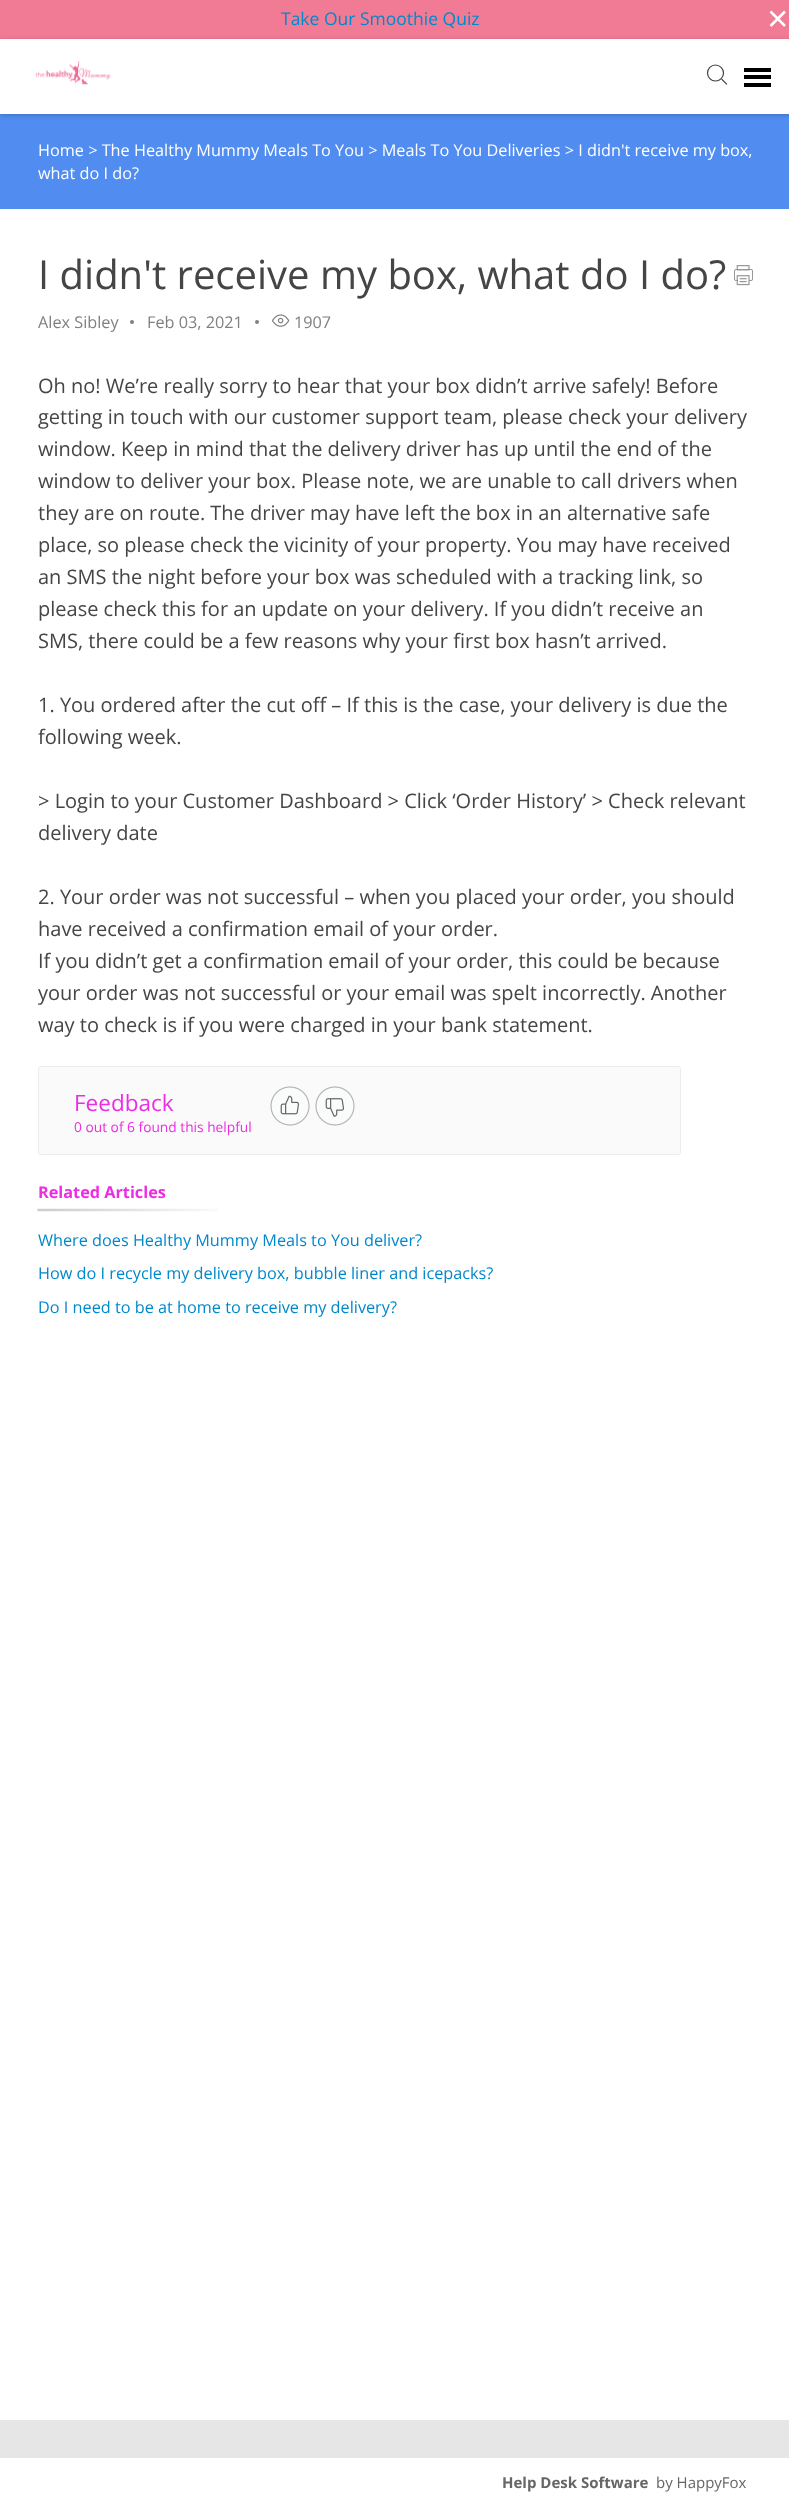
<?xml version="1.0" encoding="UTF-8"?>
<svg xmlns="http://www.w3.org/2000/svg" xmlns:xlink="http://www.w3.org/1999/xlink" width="789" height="2506">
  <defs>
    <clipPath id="clip1"><rect x="38" y="370" width="715" height="671" /></clipPath>
  </defs>
  <rect width="100%" height="100%" fill="#ffffff" />
  <rect width="789" height="39" fill="#f17b94" />
  <path d="M 785 11.5 l -14.5 14.5 m 14.5 0 l -14.5 -14.5" fill="none" stroke="#ffffff" stroke-width="2.5" />
  <rect y="114" width="789" height="95" fill="#518cf1" />
  <rect y="40" width="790" height="75" fill="#000000" fill-opacity="0.2" filter="blur(2px)" />
  <rect y="39" width="789" height="75" fill="#ffffff" />
  <image x="35" y="60" width="76" height="25" xlink:href="image1.png" />
  <circle cx="715.5" cy="73" r="8" fill="none" stroke="#424242" stroke-width="1.2" />
  <path d="M 722 79.5 l 4.5 4.5" fill="none" stroke="#424242" stroke-width="1.2" stroke-linecap="square" />
  <rect x="744" y="68" width="27" height="4" fill="#000000" />
  <rect x="744" y="75" width="27" height="4" fill="#000000" />
  <rect x="744" y="83" width="27" height="4" fill="#000000" />
  <image x="734" y="265" width="19" height="21" xlink:href="image2.png" />
  <circle cx="132" cy="322" r="2" fill="#808080" />
  <circle cx="257" cy="322" r="2" fill="#808080" />
  <image x="272" y="314" width="18" height="13" xlink:href="image3.png" />
  <rect x="38.5" y="1066.5" width="642" height="88" rx="2" fill="#fafafa" stroke="#ececec" />
  <image x="270" y="1086" width="40" height="40" xlink:href="image4.png" />
  <image x="315" y="1086" width="40" height="40" xlink:href="image5.png" />
  <image x="37" y="1208" width="181" height="4" xlink:href="image6.png" />
  <rect y="2420" width="789" height="38" fill="#e6e6e6" />
  <text x="281" y="25" style="font-family: Open Sans; font-size: 17.5px; fill: #0088cc">Take Our Smoothie Quiz</text>
  <text x="38" y="156" style="font-family: Open Sans; font-size: 16.25px; fill: #ffffff">Home &gt; The Healthy Mummy Meals To You &gt; Meals To You Deliveries &gt; I didn't receive my box,</text>
  <text x="38" y="179" style="font-family: Open Sans; font-size: 16.25px; fill: #ffffff">what do I do?</text>
  <text x="38" y="289" style="font-family: Open Sans; font-size: 40px; fill: #454545">I didn't receive my box, what do I do?</text>
  <text x="38" y="328" style="font-family: Open Sans; font-size: 16.25px; fill: #808080">Alex Sibley</text>
  <text x="147" y="328" style="font-family: Open Sans; font-size: 16.25px; fill: #808080">Feb 03, 2021</text>
  <text x="294" y="328" style="font-family: Open Sans; font-size: 16.25px; fill: #808080">1907</text>
  <text x="38" y="393" style="font-family: Open Sans; font-size: 20px; fill: #454545">Oh no! We’re really sorry to hear that your box didn’t arrive safely! Before</text>
  <text x="38" y="424" style="font-family: Open Sans; font-size: 20px; fill: #454545">getting in touch with our customer support team, please check your delivery</text>
  <text x="38" y="456" style="font-family: Open Sans; font-size: 20px; fill: #454545">window. Keep in mind that the delivery driver has up until the end of the</text>
  <text x="38" y="488" style="font-family: Open Sans; font-size: 20px; fill: #454545">window to deliver your box. Please note, we are unable to call drivers when</text>
  <text x="38" y="520" style="font-family: Open Sans; font-size: 20px; fill: #454545">they are on route. The driver may have left the box in an alternative safe</text>
  <text x="38" y="552" style="font-family: Open Sans; font-size: 20px; fill: #454545">place, so please check the vicinity of your property. You may have received</text>
  <text x="38" y="584" style="font-family: Open Sans; font-size: 20px; fill: #454545">an SMS the night before your box was scheduled with a tracking link, so</text>
  <text x="38" y="616" style="font-family: Open Sans; font-size: 20px; fill: #454545">please check this for an update on your delivery. If you didn’t receive an</text>
  <text x="38" y="648" style="font-family: Open Sans; font-size: 20px; fill: #454545">SMS, there could be a few reasons why your first box hasn’t arrived.</text>
  <text x="38" y="712" style="font-family: Open Sans; font-size: 20px; fill: #454545">1. You ordered after the cut off – If this is the case, your delivery is due the</text>
  <text x="38" y="744" style="font-family: Open Sans; font-size: 20px; fill: #454545">following week.</text>
  <text x="38" y="808" style="font-family: Open Sans; font-size: 20px; fill: #454545">&gt; Login to your Customer Dashboard &gt; Click ‘Order History’ &gt; Check relevant</text>
  <text x="38" y="840" style="font-family: Open Sans; font-size: 20px; fill: #454545">delivery date</text>
  <text x="38" y="904" style="font-family: Open Sans; font-size: 20px; fill: #454545">2. Your order was not successful – when you placed your order, you should</text>
  <text x="38" y="936" style="font-family: Open Sans; font-size: 20px; fill: #454545">have received a confirmation email of your order.</text>
  <text x="38" y="968" style="font-family: Open Sans; font-size: 20px; fill: #454545">If you didn’t get a confirmation email of your order, this could be because</text>
  <g clip-path="url(#clip1)">
    <text x="38" y="1000" style="font-family: Open Sans; font-size: 20px; fill: #454545">your order was not successful or your email was spelt incorrectly. Another</text>
  </g>
  <text x="38" y="1032" style="font-family: Open Sans; font-size: 20px; fill: #454545">way to check is if you were charged in your bank statement.</text>
  <text x="74" y="1111" style="font-family: Open Sans; font-size: 22.5px; fill: #ec2ee3">Feedback</text>
  <text x="74" y="1132" style="font-family: Open Sans; font-size: 13.75px; fill: #ec2ee3">0 out of 6 found this helpful</text>
  <text x="38" y="1198" style="font-family: Open Sans; font-size: 16.25px; font-weight: bold; fill: #ec2ee3">Related Articles</text>
  <text x="38" y="1246" style="font-family: Open Sans; font-size: 16.25px; fill: #0088cc">Where does Healthy Mummy Meals to You deliver?</text>
  <text x="38" y="1279" style="font-family: Open Sans; font-size: 16.25px; fill: #0088cc">How do I recycle my delivery box, bubble liner and icepacks?</text>
  <text x="38" y="1313" style="font-family: Open Sans; font-size: 16.25px; fill: #0088cc">Do I need to be at home to receive my delivery?</text>
  <text x="502" y="2488" style="font-family: Open Sans; font-size: 15px; font-weight: bold; fill: #666666">Help Desk Software</text>
  <text x="656" y="2488" style="font-family: Open Sans; font-size: 15px; fill: #666666">by HappyFox</text>
</svg>
